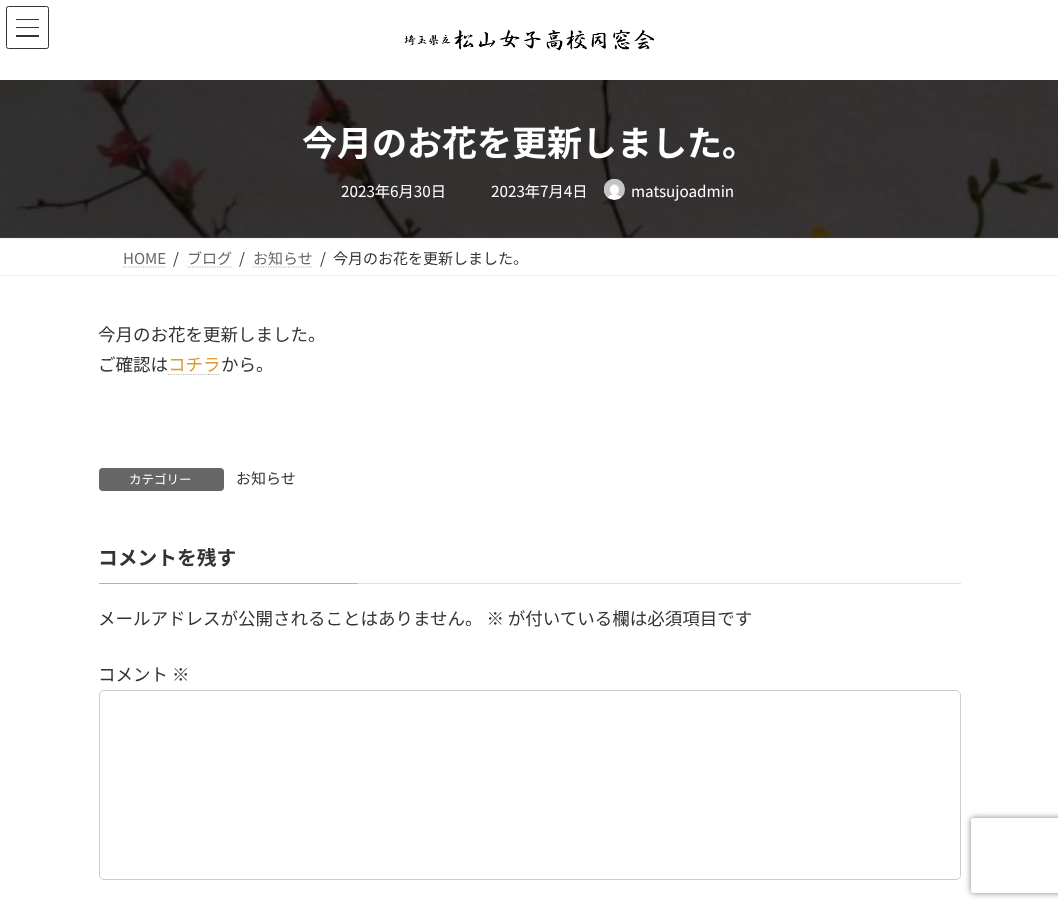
<?xml version="1.0" encoding="UTF-8"?>
<svg xmlns="http://www.w3.org/2000/svg" xmlns:xlink="http://www.w3.org/1999/xlink" width="1058" height="910">
  <defs>
    <clipPath id="clip1"><path d="M 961 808 h 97 v 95 h -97 z m 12.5 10 h 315 c 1.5 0 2.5 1 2.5 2.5 v 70 c 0 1.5 -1 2.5 -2.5 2.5 h -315 c -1.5 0 -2.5 -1 -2.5 -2.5 v -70 c 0 -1.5 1 -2.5 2.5 -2.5 z" clip-rule="evenodd" /></clipPath>
  </defs>
  <rect width="100%" height="100%" fill="#ffffff" />
  <rect y="237" width="1058" height="1" fill="#4d4d4d" />
  <rect x="16" y="19" width="23" height="1" fill="#333333" />
  <rect x="16" y="27" width="23" height="1" fill="#333333" />
  <rect x="16" y="35" width="23" height="2" fill="#333333" />
  <rect x="6.5" y="6.5" width="42" height="42" rx="2" fill="none" stroke="#333333" />
  <image x="404" y="29" width="251" height="22" xlink:href="image1.png" />
  <image x="0" y="80" width="1058" height="158" xlink:href="image2.png" />
  <image x="603" y="178" width="22" height="22" xlink:href="image3.png" />
  <rect y="238" width="1058" height="1" fill="#f0f0f0" />
  <rect y="275" width="1058" height="1" fill="#f0f0f0" />
  <path d="M 123 267 h 43" fill="none" stroke="#b3b3b3" stroke-width="1.2" stroke-dasharray="1.25 1.25" />
  <path d="M 187 267 h 45" fill="none" stroke="#b3b3b3" stroke-width="1.2" stroke-dasharray="1.25 1.25" />
  <path d="M 253 267 h 59.5" fill="none" stroke="#b3b3b3" stroke-width="1.2" stroke-dasharray="1.25 1.25" />
  <path d="M 168 374.5 h 52.5" fill="none" stroke="#b3b3b3" stroke-width="1.2" stroke-dasharray="1.25 1.25" />
  <rect x="99" y="468" width="125" height="23" rx="4" fill="#666666" />
  <rect x="358" y="583" width="603" height="1" fill="#e0e0e0" />
  <rect x="99" y="583" width="259" height="1" fill="#eaa75b" />
  <rect x="99.5" y="690.5" width="861" height="189" rx="4.5" fill="none" stroke="#cccccc" />
  <g clip-path="url(#clip1)">
    <rect x="971" y="818" width="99" height="75" rx="2.5" fill="#808080" filter="blur(3px)" />
  </g>
  <text x="302" y="156" style="font-family: Noto Sans JP; font-size: 35px; font-weight: bold; fill: #ffffff">今月のお花を更新しました。</text>
  <text x="341" y="197" style="font-family: Noto Sans JP; font-size: 15.25px; fill: #ffffff">2023年6月30日</text>
  <text x="491" y="197" style="font-family: Noto Sans JP; font-size: 15.25px; fill: #ffffff">2023年7月4日</text>
  <text x="631" y="197" style="font-family: Noto Sans JP; font-size: 15.25px; fill: #ffffff">matsujoadmin</text>
  <text x="123" y="264" style="font-family: Noto Sans JP; font-size: 15px; fill: #666666">HOME</text>
  <text x="173" y="264" style="font-family: Noto Sans JP; font-size: 15px; fill: #333333">/</text>
  <text x="187" y="264" style="font-family: Noto Sans JP; font-size: 15px; fill: #666666">ブログ</text>
  <text x="239" y="264" style="font-family: Noto Sans JP; font-size: 15px; fill: #333333">/</text>
  <text x="253" y="264" style="font-family: Noto Sans JP; font-size: 15px; fill: #666666">お知らせ</text>
  <text x="320" y="264" style="font-family: Noto Sans JP; font-size: 15px; fill: #333333">/</text>
  <text x="333" y="264" style="font-family: Noto Sans JP; font-size: 15px; fill: #333333">今月のお花を更新しました。</text>
  <text x="98" y="341" style="font-family: Noto Sans JP; font-size: 17.5px; fill: #333333">今月のお花を更新しました。</text>
  <text x="98" y="371" style="font-family: Noto Sans JP; font-size: 17.5px; fill: #333333">ご確認は</text>
  <text x="168" y="371" style="font-family: Noto Sans JP; font-size: 17.5px; fill: #dd9933">コチラ</text>
  <text x="221" y="371" style="font-family: Noto Sans JP; font-size: 17.5px; fill: #333333">から。</text>
  <text x="129" y="484" style="font-family: Noto Sans JP; font-size: 12.5px; fill: #ffffff">カテゴリー</text>
  <text x="236" y="484" style="font-family: Noto Sans JP; font-size: 15px; fill: #333333">お知らせ</text>
  <text x="98" y="565" style="font-family: Noto Sans JP; font-size: 19.75px; font-weight: bold; fill: #333333">コメントを残す</text>
  <text x="98" y="625" style="font-family: Noto Sans JP; font-size: 17.5px; fill: #333333">メールアドレスが公開されることはありません。 ※ が付いている欄は必須項目です</text>
  <text x="98" y="681" style="font-family: Noto Sans JP; font-size: 17.5px; fill: #333333">コメント ※</text>
</svg>
